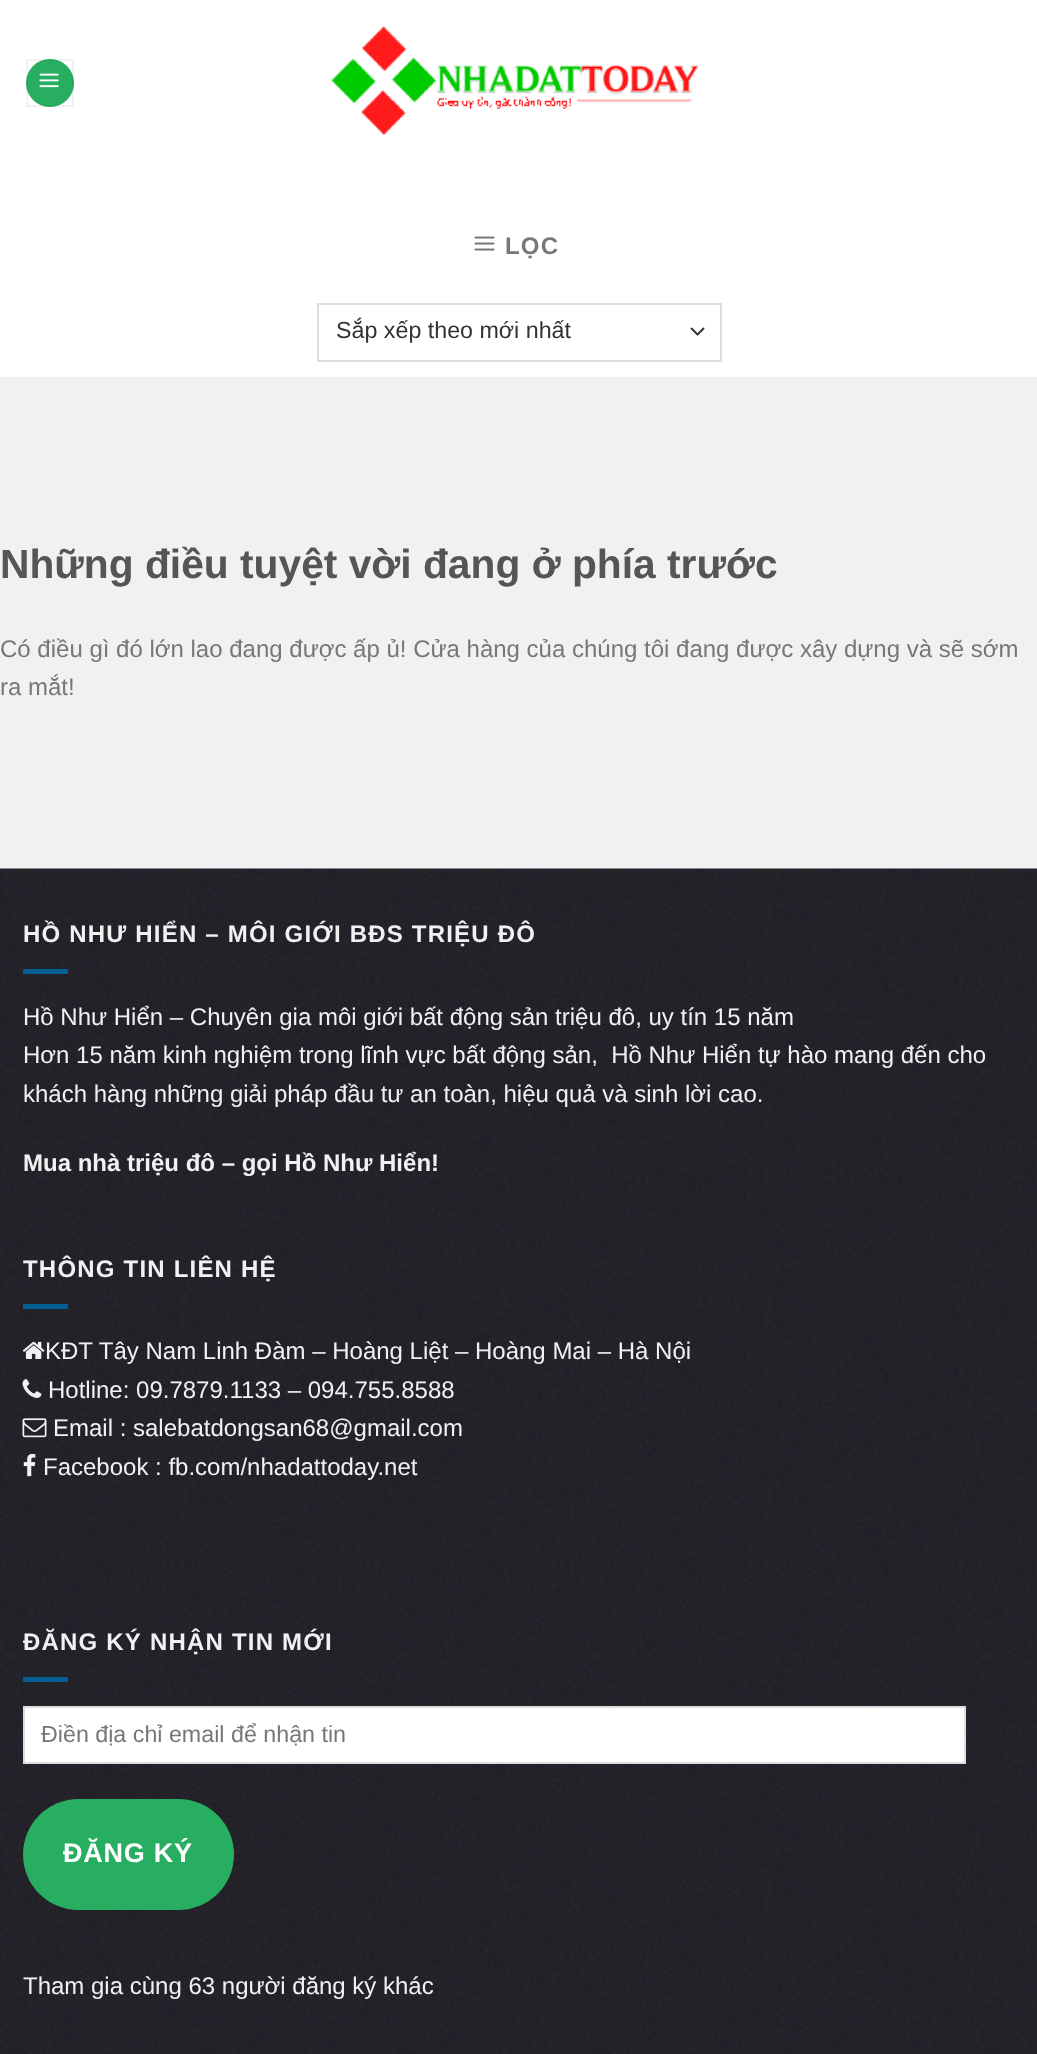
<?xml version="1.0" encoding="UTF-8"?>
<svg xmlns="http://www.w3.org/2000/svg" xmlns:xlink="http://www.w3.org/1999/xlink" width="1037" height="2054">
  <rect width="100%" height="100%" fill="#ffffff" />
  <circle cx="50" cy="83" r="24" fill="#27ae60" />
  <rect x="27" y="60" width="46" height="46" fill="none" stroke="#000000" stroke-opacity="0.05" stroke-width="2" />
  <image x="39" y="73" width="20" height="15" xlink:href="image1.png" />
  <image x="331" y="26" width="368" height="109" xlink:href="image2.png" />
  <image x="474" y="236" width="21" height="15" xlink:href="image3.png" />
  <path d="M 691.5 328.5 l 6 6 l 6 -6" fill="none" stroke="#333333" stroke-width="2" stroke-linecap="round" stroke-linejoin="round" />
  <rect x="318" y="304" width="403" height="57" fill="none" stroke="#dddddd" stroke-width="2" />
  <rect y="377" width="1037" height="492" fill="#f1f1f1" />
  <image x="0" y="868" width="1037" height="1186" xlink:href="image4.png" />
  <rect x="23" y="969" width="45" height="5" fill="#015f95" />
  <rect x="23" y="1304" width="45" height="5" fill="#015f95" />
  <image x="22" y="1341" width="23" height="18" xlink:href="image5.png" />
  <image x="22" y="1379" width="20" height="19" xlink:href="image6.png" />
  <image x="22" y="1418" width="25" height="20" xlink:href="image7.png" />
  <image x="23" y="1453" width="13" height="24" xlink:href="image8.png" />
  <rect x="23" y="1677" width="45" height="5" fill="#015f95" />
  <rect x="24" y="1707" width="941" height="56" fill="#ffffff" stroke="#dddddd" stroke-width="2" />
  <rect x="23" y="1799" width="211" height="111" rx="55.5" fill="#27ae60" />
  <text x="505" y="254" style="font-family: Liberation Sans; font-size: 24px; font-weight: bold; letter-spacing: 1.2px; fill: #777777">LỌC</text>
  <text x="336" y="338" style="font-family: Liberation Sans; font-size: 23.25px; fill: #333333">Sắp xếp theo mới nhất</text>
  <text x="0" y="578" style="font-family: Liberation Sans; font-size: 40.75px; font-weight: bold; fill: #555555">Những điều tuyệt vời đang ở phía trước</text>
  <text x="0" y="657" style="font-family: Liberation Sans; font-size: 24px; fill: #777777">Có điều gì đó lớn lao đang được ấp ủ! Cửa hàng của chúng tôi đang được xây dựng và sẽ sớm</text>
  <text x="0" y="695" style="font-family: Liberation Sans; font-size: 24px; fill: #777777">ra mắt!</text>
  <text x="23" y="942" style="font-family: Liberation Sans; font-size: 24px; font-weight: bold; letter-spacing: 1.2px; fill: #f1f1f1">HỒ NHƯ HIỂN – MÔI GIỚI BĐS TRIỆU ĐÔ</text>
  <text x="23" y="1025" style="font-family: Liberation Sans; font-size: 24px; fill: #f1f1f1">Hồ Như Hiển – Chuyên gia môi giới bất động sản triệu đô, uy tín 15 năm</text>
  <text x="23" y="1063" style="font-family: Liberation Sans; font-size: 24px; fill: #f1f1f1" xml:space="preserve">Hơn 15 năm kinh nghiệm trong lĩnh vực bất động sản,  Hồ Như Hiển tự hào mang đến cho</text>
  <text x="23" y="1102" style="font-family: Liberation Sans; font-size: 24px; fill: #f1f1f1">khách hàng những giải pháp đầu tư an toàn, hiệu quả và sinh lời cao.</text>
  <text x="23" y="1171" style="font-family: Liberation Sans; font-size: 24px; font-weight: bold; fill: #f1f1f1">Mua nhà triệu đô – gọi Hồ Như Hiển!</text>
  <text x="23" y="1277" style="font-family: Liberation Sans; font-size: 24px; font-weight: bold; letter-spacing: 1.2px; fill: #f1f1f1">THÔNG TIN LIÊN HỆ</text>
  <text x="45" y="1359" style="font-family: Liberation Sans; font-size: 24px; fill: #f1f1f1">KĐT Tây Nam Linh Đàm – Hoàng Liệt – Hoàng Mai – Hà Nội</text>
  <text x="48" y="1398" style="font-family: Liberation Sans; font-size: 24px; fill: #f1f1f1">Hotline: 09.7879.1133 – 094.755.8588</text>
  <text x="53" y="1436" style="font-family: Liberation Sans; font-size: 24px; fill: #f1f1f1">Email : salebatdongsan68@gmail.com</text>
  <text x="43" y="1475" style="font-family: Liberation Sans; font-size: 24px; fill: #f1f1f1">Facebook : fb.com/nhadattoday.net</text>
  <text x="23" y="1650" style="font-family: Liberation Sans; font-size: 24px; font-weight: bold; letter-spacing: 1.2px; fill: #f1f1f1">ĐĂNG KÝ NHẬN TIN MỚI</text>
  <text x="41" y="1742" style="font-family: Liberation Sans; font-size: 23.25px; fill: #777777">Điền địa chỉ email để nhận tin</text>
  <text x="63" y="1862" style="font-family: Liberation Sans; font-size: 27px; font-weight: bold; letter-spacing: 0.75px; fill: #ffffff">ĐĂNG KÝ</text>
  <text x="23" y="1994" style="font-family: Liberation Sans; font-size: 24px; fill: #f1f1f1">Tham gia cùng 63 người đăng ký khác</text>
</svg>
